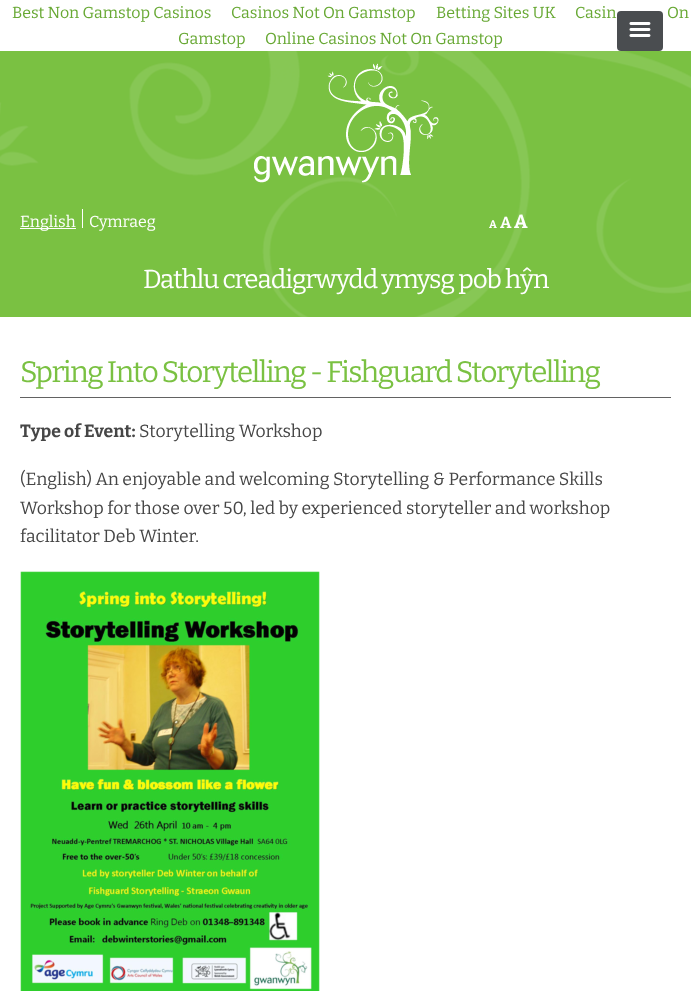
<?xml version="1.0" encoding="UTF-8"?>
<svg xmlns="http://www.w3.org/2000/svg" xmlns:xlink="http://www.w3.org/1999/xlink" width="691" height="991">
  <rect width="100%" height="100%" fill="#ffffff" />
  <rect x="617" y="11" width="46" height="40" rx="4" fill="#4a4d50" />
  <image x="629" y="22" width="22" height="15" xlink:href="image1.png" />
  <rect y="51" width="691" height="266" fill="#7ac142" />
  <image x="0" y="51" width="691" height="266" xlink:href="image2.png" />
  <image x="254" y="63" width="185" height="120" xlink:href="image3.png" />
  <rect x="82" y="209" width="1" height="19" fill="#ffffff" />
  <rect x="20" y="228" width="56" height="1" fill="#ffffff" />
  <rect x="20" y="397" width="651" height="1" fill="#626262" />
  <image x="20" y="571" width="300" height="420" xlink:href="image4.png" />
  <text x="12" y="18" style="font-family: Bitter; font-size: 16px; fill: #67a833">Best Non Gamstop Casinos</text>
  <text x="231" y="18" style="font-family: Bitter; font-size: 16px; fill: #67a833">Casinos Not On Gamstop</text>
  <text x="436" y="18" style="font-family: Bitter; font-size: 16px; fill: #67a833">Betting Sites UK</text>
  <text x="575" y="18" style="font-family: Bitter; font-size: 16px; fill: #67a833">Casin</text>
  <text x="667" y="18" style="font-family: Bitter; font-size: 16px; fill: #67a833">On</text>
  <text x="178" y="44" style="font-family: Bitter; font-size: 16px; fill: #67a833">Gamstop</text>
  <text x="265" y="44" style="font-family: Bitter; font-size: 16px; fill: #67a833">Online Casinos Not On Gamstop</text>
  <text x="20" y="227" style="font-family: Bitter; font-size: 16px; fill: #ffffff">English</text>
  <text x="89" y="227" style="font-family: Bitter; font-size: 16px; fill: #ffffff">Cymraeg</text>
  <text x="489" y="228" style="font-family: Bitter; font-size: 11px; font-weight: bold; fill: #ffffff">A</text>
  <text x="500" y="228" style="font-family: Bitter; font-size: 16px; font-weight: bold; fill: #ffffff">A</text>
  <text x="514" y="228" style="font-family: Bitter; font-size: 19px; font-weight: bold; fill: #ffffff">A</text>
  <text x="143" y="288" style="font-family: Bitter; font-size: 26px; letter-spacing: -1px; fill: #ffffff">Dathlu creadigrwydd ymysg pob hŷn</text>
  <text x="20" y="382" style="font-family: Bitter; font-size: 29.6px; letter-spacing: -1.5px; fill: #7ac142">Spring Into Storytelling - Fishguard Storytelling</text>
  <text x="20" y="437" style="font-family: Bitter; font-size: 17.6px; font-weight: bold; fill: #464646">Type of Event:</text>
  <text x="139" y="437" style="font-family: Bitter; font-size: 17.6px; fill: #464646">Storytelling Workshop</text>
  <text x="20" y="485" style="font-family: Bitter; font-size: 17.6px; fill: #464646">(English) An enjoyable and welcoming Storytelling &amp; Performance Skills</text>
  <text x="20" y="514" style="font-family: Bitter; font-size: 17.6px; fill: #464646">Workshop for those over 50, led by experienced storyteller and workshop</text>
  <text x="20" y="542" style="font-family: Bitter; font-size: 17.6px; fill: #464646">facilitator Deb Winter.</text>
</svg>
